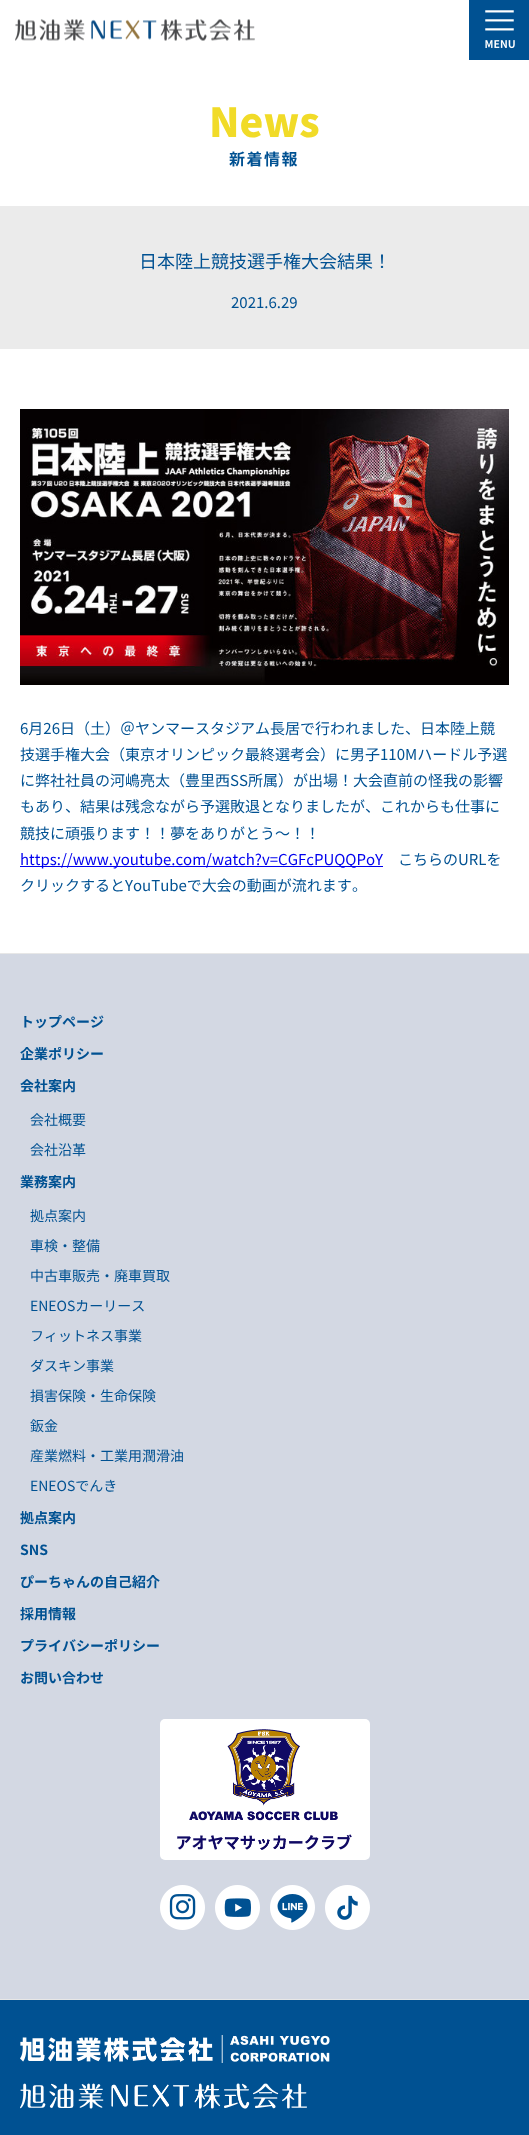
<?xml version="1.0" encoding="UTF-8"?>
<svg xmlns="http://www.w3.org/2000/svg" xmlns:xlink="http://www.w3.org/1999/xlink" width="529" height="2135">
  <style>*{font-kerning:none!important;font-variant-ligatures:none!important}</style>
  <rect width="100%" height="100%" fill="#ffffff" />
  <image x="15" y="19" width="240" height="22" xlink:href="image1.png" />
  <rect x="469" width="60" height="60" fill="#005192" />
  <image x="485" y="10" width="30" height="39" xlink:href="image2.png" />
  <rect y="206" width="529" height="143" fill="#ebebeb" />
  <image x="20" y="409" width="489" height="276" xlink:href="image3.png" />
  <rect x="20" y="866" width="363" height="1" fill="#0000ee" />
  <rect y="954" width="529" height="1045" fill="#d3d8e3" />
  <rect y="953" width="529" height="1" fill="#e7e7e7" />
  <rect y="1999" width="529" height="1" fill="#e7e7e7" />
  <rect x="160" y="1719" width="210" height="141" rx="5" fill="#ffffff" />
  <image x="177" y="1729" width="175" height="121" xlink:href="image4.png" />
  <image x="160" y="1885" width="45" height="45" xlink:href="image5.png" />
  <image x="215" y="1885" width="45" height="45" xlink:href="image6.png" />
  <image x="270" y="1885" width="45" height="45" xlink:href="image7.png" />
  <image x="325" y="1885" width="45" height="45" xlink:href="image8.png" />
  <rect y="2000" width="529" height="135" fill="#005192" />
  <image x="20" y="2035" width="310" height="74" xlink:href="image9.png" />
  <text x="209" y="137" style="font-family: Noto Sans JP; font-size: 40px; font-weight: 900; fill: #f1db28">News</text>
  <text x="229" y="165" style="font-family: Noto Sans JP; font-size: 16px; font-weight: bold; letter-spacing: 1.5px; fill: #005192">新着情報</text>
  <text x="139" y="268" style="font-family: Noto Sans JP; font-size: 18px; fill: #005192">日本陸上競技選手権大会結果！</text>
  <text x="231" y="308" style="font-family: Noto Sans JP; font-size: 15px; fill: #005192">2021.6.29</text>
  <text x="20" y="734" style="font-family: Noto Sans JP; font-size: 15px; fill: #005192">6月26日（土）＠ヤンマースタジアム長居で行われました、日本陸上競</text>
  <text x="20" y="760" style="font-family: Noto Sans JP; font-size: 15px; fill: #005192">技選手権大会（東京オリンピック最終選考会）に男子110Mハードル予選</text>
  <text x="20" y="786" style="font-family: Noto Sans JP; font-size: 15px; fill: #005192">に弊社社員の河嶋亮太（豊里西SS所属）が出場！大会直前の怪我の影響</text>
  <text x="20" y="812" style="font-family: Noto Sans JP; font-size: 15px; fill: #005192">もあり、結果は残念ながら予選敗退となりましたが、これからも仕事に</text>
  <text x="20" y="839" style="font-family: Noto Sans JP; font-size: 15px; fill: #005192">競技に頑張ります！！夢をありがとう～！！</text>
  <text x="20" y="865" style="font-family: Noto Sans JP; font-size: 15px; fill: #0000ee">https://www.youtube.com/watch?v=CGFcPUQQPoY</text>
  <text x="398" y="865" style="font-family: Noto Sans JP; font-size: 15px; fill: #005192">こちらのURLを</text>
  <text x="20" y="891" style="font-family: Noto Sans JP; font-size: 15px; fill: #005192">クリックするとYouTubeで大会の動画が流れます</text>
  <text x="352" y="891" style="font-family: Noto Sans JP; font-size: 15px; fill: #005192">。</text>
  <text x="20" y="1027" style="font-family: Noto Sans JP; font-size: 14px; font-weight: bold; fill: #005192">トップページ</text>
  <text x="20" y="1059" style="font-family: Noto Sans JP; font-size: 14px; font-weight: bold; fill: #005192">企業ポリシー</text>
  <text x="20" y="1091" style="font-family: Noto Sans JP; font-size: 14px; font-weight: bold; fill: #005192">会社案内</text>
  <text x="30" y="1125" style="font-family: Noto Sans JP; font-size: 14px; fill: #005192">会社概要</text>
  <text x="30" y="1155" style="font-family: Noto Sans JP; font-size: 14px; fill: #005192">会社沿革</text>
  <text x="20" y="1187" style="font-family: Noto Sans JP; font-size: 14px; font-weight: bold; fill: #005192">業務案内</text>
  <text x="30" y="1221" style="font-family: Noto Sans JP; font-size: 14px; fill: #005192">拠点案内</text>
  <text x="30" y="1251" style="font-family: Noto Sans JP; font-size: 14px; fill: #005192">車検・整備</text>
  <text x="30" y="1281" style="font-family: Noto Sans JP; font-size: 14px; fill: #005192">中古車販売・廃車買取</text>
  <text x="30" y="1311" style="font-family: Noto Sans JP; font-size: 14px; fill: #005192">ENEOSカーリース</text>
  <text x="30" y="1341" style="font-family: Noto Sans JP; font-size: 14px; fill: #005192">フィットネス事業</text>
  <text x="30" y="1371" style="font-family: Noto Sans JP; font-size: 14px; fill: #005192">ダスキン事業</text>
  <text x="30" y="1401" style="font-family: Noto Sans JP; font-size: 14px; fill: #005192">損害保険・生命保険</text>
  <text x="30" y="1431" style="font-family: Noto Sans JP; font-size: 14px; fill: #005192">鈑金</text>
  <text x="30" y="1461" style="font-family: Noto Sans JP; font-size: 14px; fill: #005192">産業燃料・工業用潤滑油</text>
  <text x="30" y="1491" style="font-family: Noto Sans JP; font-size: 14px; fill: #005192">ENEOSでんき</text>
  <text x="20" y="1523" style="font-family: Noto Sans JP; font-size: 14px; font-weight: bold; fill: #005192">拠点案内</text>
  <text x="20" y="1555" style="font-family: Noto Sans JP; font-size: 14px; font-weight: bold; fill: #005192">SNS</text>
  <text x="20" y="1587" style="font-family: Noto Sans JP; font-size: 14px; font-weight: bold; fill: #005192">ぴーちゃんの自己紹介</text>
  <text x="20" y="1619" style="font-family: Noto Sans JP; font-size: 14px; font-weight: bold; fill: #005192">採用情報</text>
  <text x="20" y="1651" style="font-family: Noto Sans JP; font-size: 14px; font-weight: bold; fill: #005192">プライバシーポリシー</text>
  <text x="20" y="1683" style="font-family: Noto Sans JP; font-size: 14px; font-weight: bold; fill: #005192">お問い合わせ</text>
</svg>
